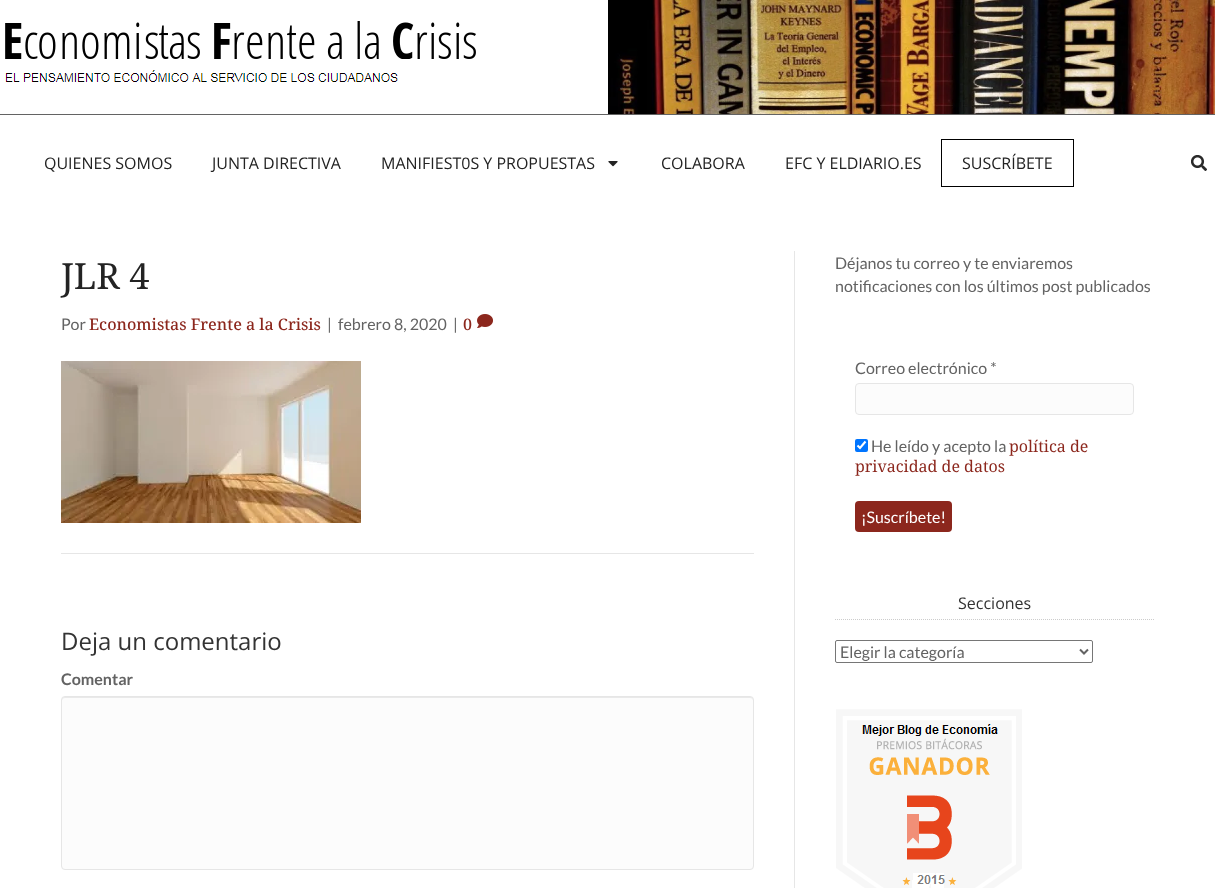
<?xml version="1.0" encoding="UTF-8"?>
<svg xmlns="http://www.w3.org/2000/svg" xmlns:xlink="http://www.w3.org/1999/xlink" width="1215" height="888">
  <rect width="100%" height="100%" fill="#ffffff" />
  <rect y="114" width="1215" height="1" fill="#636363" />
  <image x="5" y="21" width="471" height="61" xlink:href="image1.png" />
  <image x="608" y="0" width="607" height="114" xlink:href="image2.png" />
  <image x="608" y="161" width="10" height="6" xlink:href="image3.png" />
  <rect x="941.5" y="139.5" width="132" height="47" fill="none" stroke="#000000" />
  <image x="1191" y="155" width="16" height="16" xlink:href="image4.png" />
  <rect x="794" y="251" width="1" height="637" fill="#e6e6e6" />
  <image x="477" y="314" width="16" height="14" xlink:href="image5.png" />
  <image x="61" y="361" width="300" height="162" xlink:href="image6.png" />
  <rect x="61" y="553" width="693" height="1" fill="#e6e6e6" />
  <rect x="61" y="696" width="693" height="174" rx="4" fill="#fcfcfc" />
  <path d="M 65 698 h 685 c 2 0 3 1 3 3 v -1 c 0 -2 -1 -3 -3 -3 h -685 c -2 0 -3 1 -3 3 v 1 c 0 -2 1 -3 3 -3 z" fill="#e9e9e9" />
  <rect x="61.5" y="696.5" width="692" height="173" rx="3.5" fill="none" stroke="#e6e6e6" />
  <rect x="855.5" y="383.5" width="278" height="31" rx="3.5" fill="#fcfcfc" stroke="#e6e6e6" />
  <rect x="855" y="439" width="13" height="13" rx="2" fill="#0075ff" />
  <path d="M 857.5 445.5 l 2.5 2.5 l 5.5 -6.5" fill="none" stroke="#ffffff" stroke-width="2.1" />
  <rect x="855" y="501" width="97" height="31" rx="4" fill="#8c271d" />
  <path d="M 835 619.5 h 319" fill="none" stroke="#cccccc" stroke-dasharray="1 1" />
  <rect x="835.5" y="640.5" width="257" height="22" rx="1.5" fill="none" stroke="#767676" />
  <path d="M 1080 649.5 l 4 4 l 4 -4" fill="none" stroke="#636363" stroke-width="2" />
  <image x="836" y="709" width="186" height="179" xlink:href="image7.png" />
  <text x="44" y="169" style="font-family: Open Sans; font-size: 16px; fill: #232323">QUIENES SOMOS</text>
  <text x="212" y="169" style="font-family: Open Sans; font-size: 16px; fill: #232323">JUNTA DIRECTIVA</text>
  <text x="381" y="169" style="font-family: Open Sans; font-size: 16px; fill: #232323">MANIFIEST0S Y PROPUESTAS</text>
  <text x="661" y="169" style="font-family: Open Sans; font-size: 16px; fill: #232323">COLABORA</text>
  <text x="785" y="169" style="font-family: Open Sans; font-size: 16px; fill: #232323">EFC Y ELDIARIO.ES</text>
  <text x="962" y="169" style="font-family: Open Sans; font-size: 16px; fill: #232323">SUSCRÍBETE</text>
  <text x="61" y="289" style="font-family: Noto Serif; font-size: 36px; fill: #232323">JLR 4</text>
  <text x="61" y="330" style="font-family: Lato; font-size: 16px; fill: #636363">Por</text>
  <text x="89" y="330" style="font-family: Noto Serif; font-size: 16px; font-weight: 500; fill: #8c271d">Economistas Frente a la Crisis</text>
  <text x="327" y="330" style="font-family: Lato; font-size: 16px; fill: #636363">|</text>
  <text x="338" y="330" style="font-family: Lato; font-size: 16px; fill: #636363">febrero 8, 2020</text>
  <text x="453" y="330" style="font-family: Lato; font-size: 16px; fill: #636363">|</text>
  <text x="463" y="330" style="font-family: Noto Serif; font-size: 16px; font-weight: 500; fill: #8c271d">0</text>
  <text x="61" y="650" style="font-family: Open Sans; font-size: 24px; fill: #333333">Deja un comentario</text>
  <text x="61" y="685" style="font-family: Lato; font-size: 16px; font-weight: bold; fill: #636363">Comentar</text>
  <text x="835" y="269" style="font-family: Lato; font-size: 16px; fill: #636363">Déjanos tu correo y te enviaremos</text>
  <text x="835" y="292" style="font-family: Lato; font-size: 16px; fill: #636363">notificaciones con los últimos post publicados</text>
  <text x="855" y="374" style="font-family: Lato; font-size: 16px; fill: #636363">Correo electrónico *</text>
  <text x="871" y="452" style="font-family: Lato; font-size: 16px; fill: #636363">He leído y acepto la</text>
  <text x="1009" y="452" style="font-family: Noto Serif; font-size: 16px; fill: #8c271d">política de</text>
  <text x="855" y="472" style="font-family: Noto Serif; font-size: 16px; fill: #8c271d">privacidad de datos</text>
  <text x="861" y="523" style="font-family: Lato; font-size: 16px; fill: #ffffff">¡Suscríbete!</text>
  <text x="958" y="609" style="font-family: Open Sans; font-size: 16px; fill: #333333">Secciones</text>
  <text x="840" y="658" style="font-family: Lato; font-size: 16px; fill: #636363">Elegir la categoría</text>
</svg>
